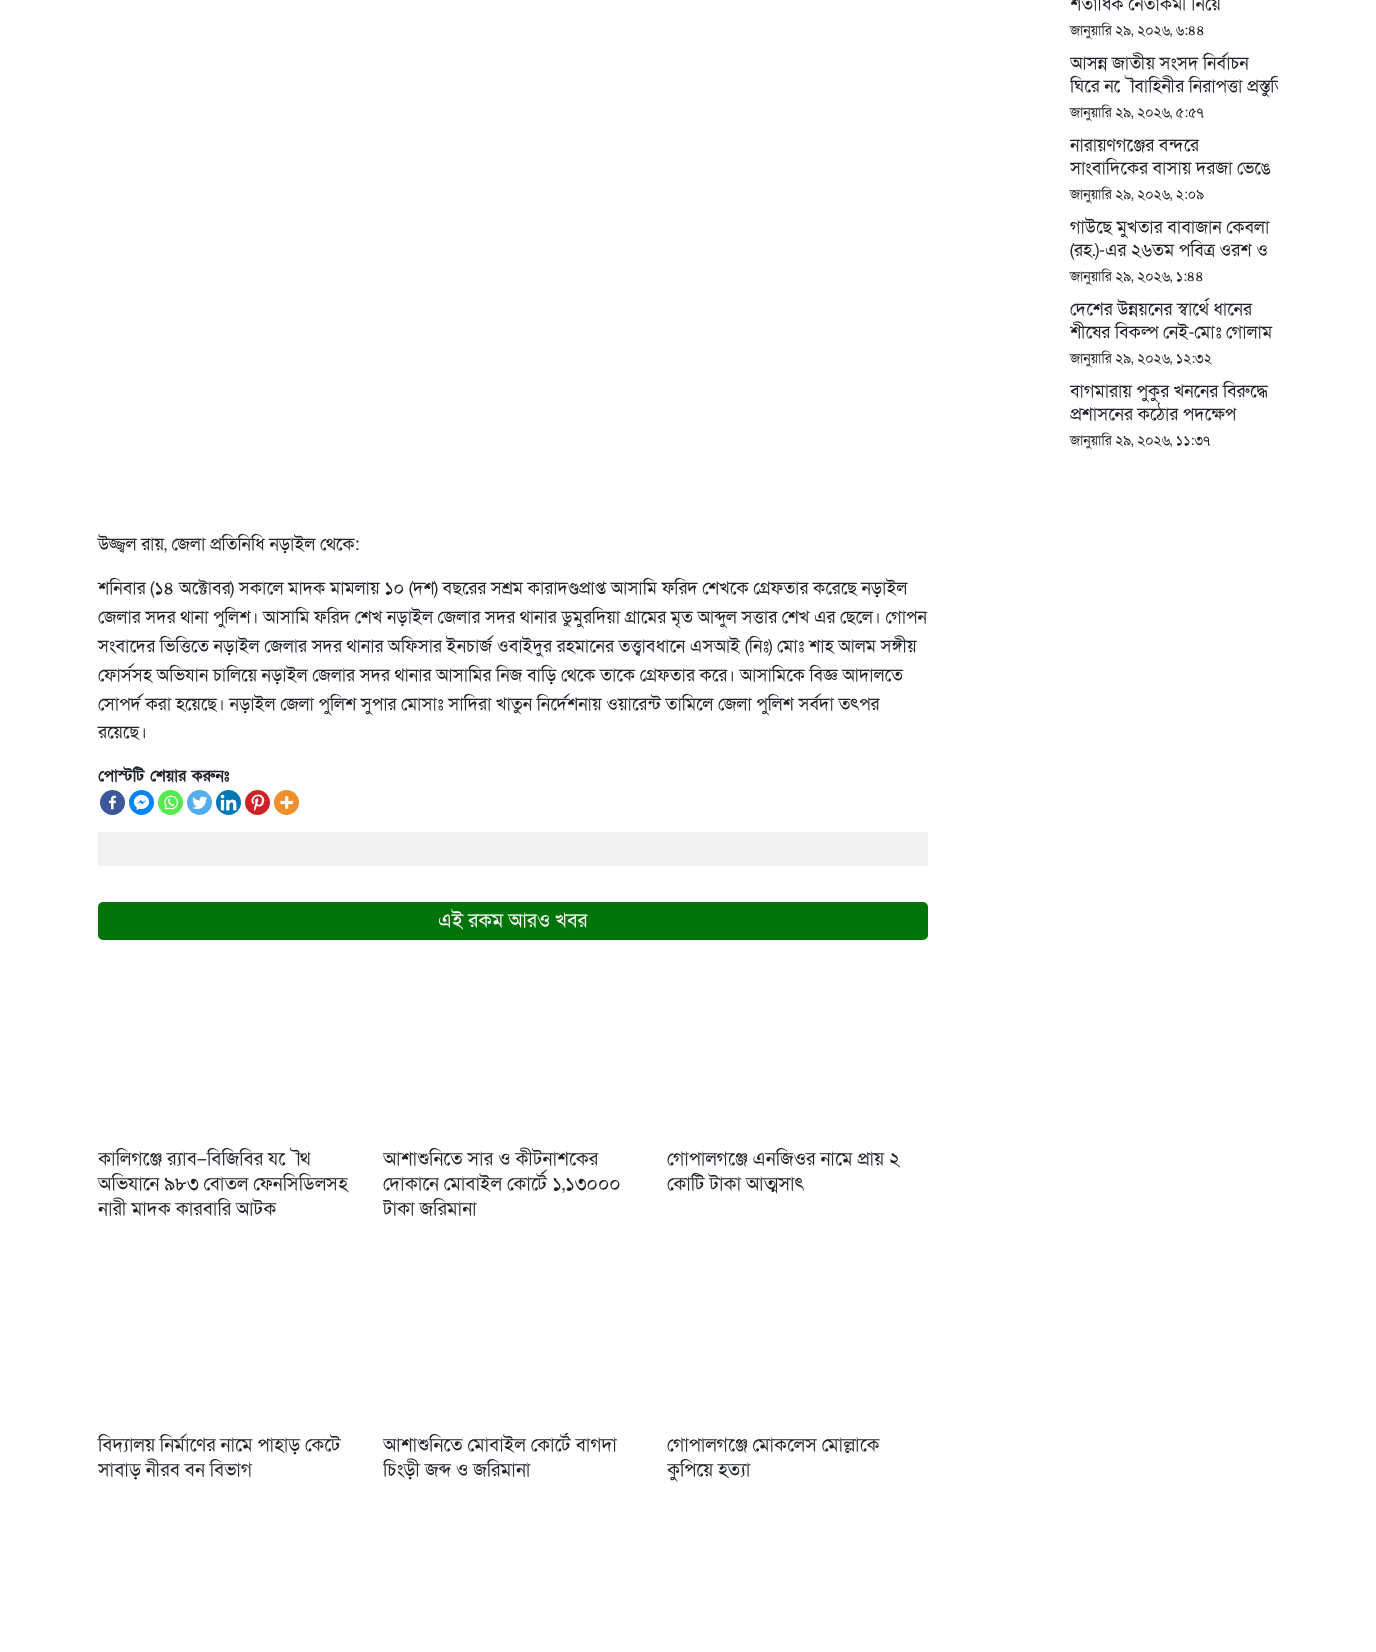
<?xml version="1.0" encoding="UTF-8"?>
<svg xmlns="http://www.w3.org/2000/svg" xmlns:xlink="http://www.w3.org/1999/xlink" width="1376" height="1652">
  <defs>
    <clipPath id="clip1"><path d="M 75 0 h 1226 v 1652 h -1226 z m 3 -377 h 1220 v 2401 h -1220 z" clip-rule="evenodd" /></clipPath>
    <clipPath id="clip2"><rect x="1070" y="52" width="208" height="46" /></clipPath>
    <clipPath id="clip3"><rect x="1070" y="134" width="208" height="46" /></clipPath>
    <clipPath id="clip4"><rect x="1070" y="216" width="208" height="46" /></clipPath>
    <clipPath id="clip5"><rect x="1070" y="298" width="208" height="46" /></clipPath>
    <clipPath id="clip6"><rect x="1070" y="380" width="208" height="46" /></clipPath>
    <clipPath id="clip7"><rect x="98" y="1147" width="261" height="75" /></clipPath>
    <clipPath id="clip8"><rect x="383" y="1147" width="260" height="75" /></clipPath>
    <clipPath id="clip9"><rect x="667" y="1147" width="261" height="50" /></clipPath>
    <clipPath id="clip10"><rect x="98" y="1433" width="261" height="50" /></clipPath>
    <clipPath id="clip11"><rect x="383" y="1433" width="260" height="50" /></clipPath>
    <clipPath id="clip12"><rect x="667" y="1433" width="261" height="50" /></clipPath>
  </defs>
  <rect width="100%" height="100%" fill="#ffffff" />
  <g clip-path="url(#clip1)">
    <rect x="78" y="-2" width="1220" height="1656" fill="#999999" filter="blur(0.5px)" />
  </g>
  <circle cx="112.5" cy="802.5" r="12.5" fill="#3c589a" />
  <image x="108" y="795" width="9" height="15" xlink:href="image1.png" />
  <circle cx="141.5" cy="802.5" r="12.5" fill="#0084ff" />
  <image x="133" y="794" width="17" height="16" xlink:href="image2.png" />
  <circle cx="170.5" cy="802.5" r="12.5" fill="#55eb4c" />
  <image x="164" y="795" width="14" height="15" xlink:href="image3.png" />
  <circle cx="199.5" cy="802.5" r="12.5" fill="#55acee" />
  <image x="192" y="796" width="16" height="14" xlink:href="image4.png" />
  <circle cx="228.5" cy="802.5" r="12.5" fill="#0077b5" />
  <image x="220" y="794" width="17" height="17" xlink:href="image5.png" />
  <circle cx="257.5" cy="802.5" r="12.5" fill="#cc2329" />
  <image x="251" y="794" width="14" height="17" xlink:href="image6.png" />
  <circle cx="286.5" cy="802.5" r="12.5" fill="#ee8e2d" />
  <image x="280" y="796" width="13" height="13" xlink:href="image7.png" />
  <rect x="98" y="832" width="830" height="34" fill="#f1f1f1" />
  <rect x="98" y="902" width="830" height="38" rx="5" fill="#007507" />
  <text x="1070" y="10" style="font-family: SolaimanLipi; font-size: 18px; fill: #212529">শতাধিক নেতাকর্মী নিয়ে</text>
  <text x="1070" y="35" style="font-family: SolaimanLipi; font-size: 14px; fill: #212529">জানুয়ারি ২৯, ২০২৬, ৬:৪৪</text>
  <g clip-path="url(#clip2)">
    <text x="1070" y="69" style="font-family: SolaimanLipi; font-size: 18px; fill: #212529">আসন্ন জাতীয় সংসদ নির্বাচন</text>
    <text x="1070" y="92" style="font-family: SolaimanLipi; font-size: 18px; fill: #212529">ঘিরে নৌবাহিনীর নিরাপত্তা প্রস্তুতি</text>
  </g>
  <text x="1070" y="117" style="font-family: SolaimanLipi; font-size: 14px; fill: #212529">জানুয়ারি ২৯, ২০২৬, ৫:৫৭</text>
  <g clip-path="url(#clip3)">
    <text x="1070" y="151" style="font-family: SolaimanLipi; font-size: 18px; fill: #212529">নারায়ণগঞ্জের বন্দরে</text>
    <text x="1070" y="174" style="font-family: SolaimanLipi; font-size: 18px; fill: #212529">সাংবাদিকের বাসায় দরজা ভেঙে</text>
  </g>
  <text x="1070" y="199" style="font-family: SolaimanLipi; font-size: 14px; fill: #212529">জানুয়ারি ২৯, ২০২৬, ২:০৯</text>
  <g clip-path="url(#clip4)">
    <text x="1070" y="233" style="font-family: SolaimanLipi; font-size: 18px; fill: #212529">গাউছে মুখতার বাবাজান কেবলা</text>
  </g>
  <text x="1070" y="256" style="font-family: SolaimanLipi; font-size: 18px; fill: #212529">(রহ.)-এর ২৬তম পবিত্র ওরশ ও</text>
  <text x="1070" y="281" style="font-family: SolaimanLipi; font-size: 14px; fill: #212529">জানুয়ারি ২৯, ২০২৬, ১:৪৪</text>
  <g clip-path="url(#clip5)">
    <text x="1070" y="315" style="font-family: SolaimanLipi; font-size: 18px; fill: #212529">দেশের উন্নয়নের স্বার্থে ধানের</text>
    <text x="1070" y="338" style="font-family: SolaimanLipi; font-size: 18px; fill: #212529">শীষের বিকল্প নেই-মোঃ গোলাম</text>
  </g>
  <text x="1070" y="363" style="font-family: SolaimanLipi; font-size: 14px; fill: #212529">জানুয়ারি ২৯, ২০২৬, ১২:৩২</text>
  <g clip-path="url(#clip6)">
    <text x="1070" y="397" style="font-family: SolaimanLipi; font-size: 18px; fill: #212529">বাগমারায় পুকুর খননের বিরুদ্ধে</text>
  </g>
  <text x="1070" y="420" style="font-family: SolaimanLipi; font-size: 18px; fill: #212529">প্রশাসনের কঠোর পদক্ষেপ</text>
  <text x="1070" y="445" style="font-family: SolaimanLipi; font-size: 14px; fill: #212529">জানুয়ারি ২৯, ২০২৬, ১১:৩৭</text>
  <text x="98" y="550" style="font-family: SolaimanLipi; font-size: 18px; fill: #212529">উজ্জ্বল রায়, জেলা প্রতিনিধি নড়াইল থেকে:</text>
  <text x="98" y="594" style="font-family: SolaimanLipi; font-size: 18px; fill: #212529">শনিবার (১৪ অক্টোবর) সকালে মাদক মামলায় ১০ (দশ) বছরের সশ্রম কারাদণ্ডপ্রাপ্ত আসামি ফরিদ শেখকে গ্রেফতার করেছে নড়াইল</text>
  <text x="98" y="623" style="font-family: SolaimanLipi; font-size: 18px; fill: #212529">জেলার সদর থানা পুলিশ। আসামি ফরিদ শেখ নড়াইল জেলার সদর থানার ডুমুরদিয়া গ্রামের মৃত আব্দুল সত্তার শেখ এর ছেলে। গোপন</text>
  <text x="98" y="652" style="font-family: SolaimanLipi; font-size: 18px; fill: #212529">সংবাদের ভিত্তিতে নড়াইল জেলার সদর থানার অফিসার ইনচার্জ ওবাইদুর রহমানের তত্ত্বাবধানে এসআই (নিঃ) মোঃ শাহ আলম সঙ্গীয়</text>
  <text x="98" y="681" style="font-family: SolaimanLipi; font-size: 18px; fill: #212529">ফোর্সসহ অভিযান চালিয়ে নড়াইল জেলার সদর থানার আসামির নিজ বাড়ি থেকে তাকে গ্রেফতার করে। আসামিকে বিজ্ঞ আদালতে</text>
  <text x="98" y="710" style="font-family: SolaimanLipi; font-size: 18px; fill: #212529">সোপর্দ করা হয়েছে। নড়াইল জেলা পুলিশ সুপার মোসাঃ সাদিরা খাতুন নির্দেশনায় ওয়ারেন্ট তামিলে জেলা পুলিশ সর্বদা তৎপর</text>
  <text x="98" y="738" style="font-family: SolaimanLipi; font-size: 18px; fill: #212529">রয়েছে।</text>
  <text x="98" y="781" style="font-family: SolaimanLipi; font-size: 16px; font-weight: bold; fill: #212529">পোস্টটি শেয়ার করুনঃ</text>
  <text x="438" y="927" style="font-family: SolaimanLipi; font-size: 20px; fill: #ffffff">এই রকম আরও খবর</text>
  <g clip-path="url(#clip7)">
    <text x="98" y="1165" style="font-family: SolaimanLipi; font-size: 19px; fill: #212529">কালিগঞ্জে র‍্যাব–বিজিবির যৌথ</text>
  </g>
  <text x="98" y="1190" style="font-family: SolaimanLipi; font-size: 19px; fill: #212529">অভিযানে ৯৮৩ বোতল ফেনসিডিলসহ</text>
  <g clip-path="url(#clip7)">
    <text x="98" y="1215" style="font-family: SolaimanLipi; font-size: 19px; fill: #212529">নারী মাদক কারবারি আটক</text>
  </g>
  <g clip-path="url(#clip8)">
    <text x="383" y="1165" style="font-family: SolaimanLipi; font-size: 19px; fill: #212529">আশাশুনিতে সার ও কীটনাশকের</text>
    <text x="383" y="1190" style="font-family: SolaimanLipi; font-size: 19px; fill: #212529">দোকানে মোবাইল কোর্টে ১,১৩০০০</text>
    <text x="383" y="1215" style="font-family: SolaimanLipi; font-size: 19px; fill: #212529">টাকা জরিমানা</text>
  </g>
  <g clip-path="url(#clip9)">
    <text x="667" y="1165" style="font-family: SolaimanLipi; font-size: 19px; fill: #212529">গোপালগঞ্জে এনজিওর নামে প্রায় ২</text>
    <text x="667" y="1190" style="font-family: SolaimanLipi; font-size: 19px; fill: #212529">কোটি টাকা আত্মসাৎ</text>
  </g>
  <text x="98" y="1451" style="font-family: SolaimanLipi; font-size: 19px; fill: #212529">বিদ্যালয় নির্মাণের নামে পাহাড় কেটে</text>
  <g clip-path="url(#clip10)">
    <text x="98" y="1476" style="font-family: SolaimanLipi; font-size: 19px; fill: #212529">সাবাড় নীরব বন বিভাগ</text>
  </g>
  <g clip-path="url(#clip11)">
    <text x="383" y="1451" style="font-family: SolaimanLipi; font-size: 19px; fill: #212529">আশাশুনিতে মোবাইল কোর্টে বাগদা</text>
    <text x="383" y="1476" style="font-family: SolaimanLipi; font-size: 19px; fill: #212529">চিংড়ী জব্দ ও জরিমানা</text>
  </g>
  <g clip-path="url(#clip12)">
    <text x="667" y="1451" style="font-family: SolaimanLipi; font-size: 19px; fill: #212529">গোপালগঞ্জে মোকলেস মোল্লাকে</text>
    <text x="667" y="1476" style="font-family: SolaimanLipi; font-size: 19px; fill: #212529">কুপিয়ে হত্যা</text>
  </g>
</svg>
